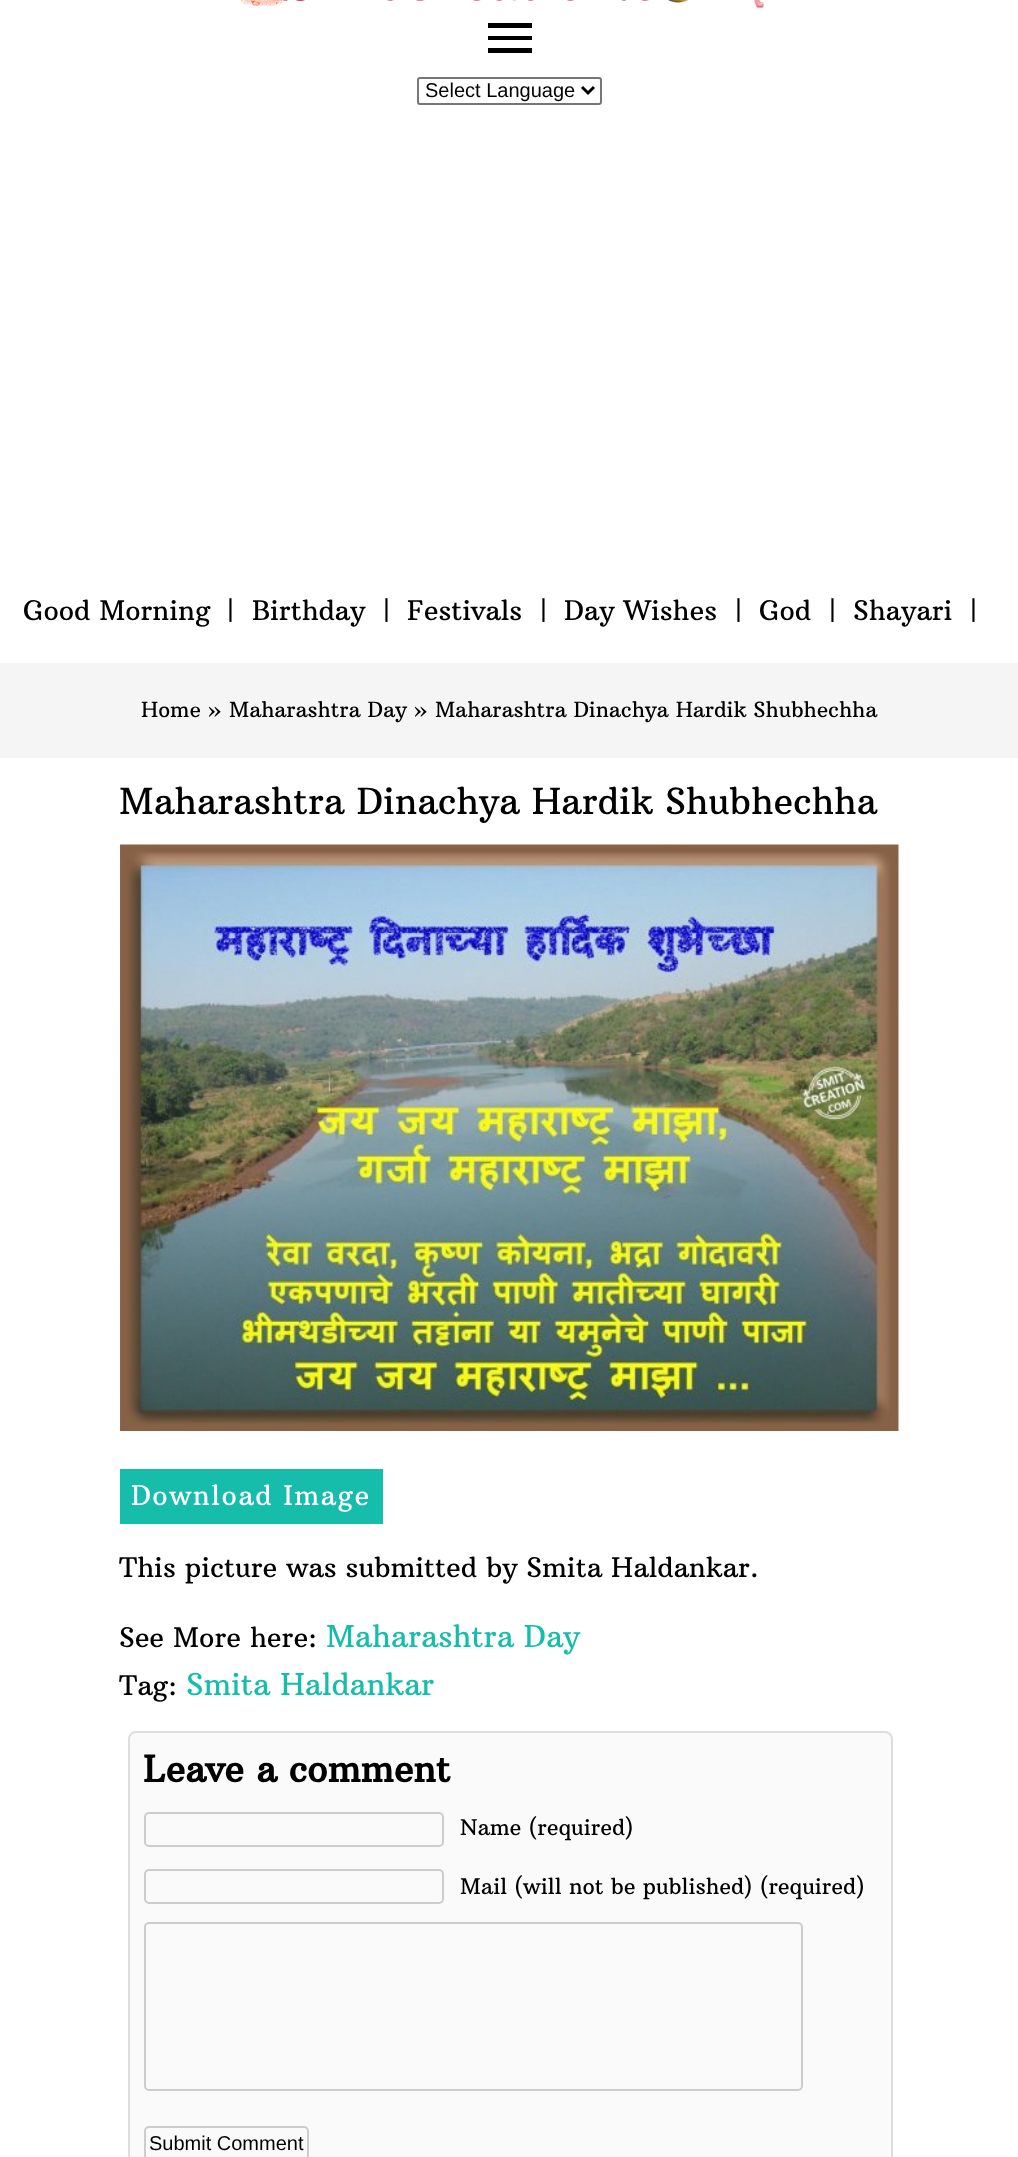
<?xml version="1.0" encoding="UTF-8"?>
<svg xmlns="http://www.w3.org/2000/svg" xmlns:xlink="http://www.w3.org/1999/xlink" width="1018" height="2157">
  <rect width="100%" height="100%" fill="#ffffff" />
  <image x="240" y="0" width="524" height="8" xlink:href="image1.png" />
  <path d="M 488 23 h 44 v 5 h -44 z m 0 17 v -4 h 44 v 4 z m 0 13 v -5 h 44 v 5 z" fill="#000000" />
  <rect x="418" y="78" width="183" height="26" rx="2" fill="none" stroke="#767676" stroke-width="2" />
  <path d="M 582 87 l 6 6 l 6 -6" fill="none" stroke="#000000" stroke-width="3" />
  <rect y="663" width="1018" height="95" fill="#f5f5f5" />
  <image x="120" y="844" width="779" height="587" xlink:href="image2.png" />
  <rect x="120" y="1469" width="263" height="55" fill="#16bdab" />
  <rect x="129" y="1732" width="763" height="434" rx="7" fill="#fafafa" stroke="#dddddd" stroke-width="2" />
  <rect x="145" y="1813" width="298" height="33" rx="4" fill="none" stroke="#cccccc" stroke-width="2" />
  <rect x="145" y="1870" width="298" height="33" rx="4" fill="none" stroke="#cccccc" stroke-width="2" />
  <rect x="145" y="1923" width="657" height="167" rx="4" fill="none" stroke="#cccccc" stroke-width="2" />
  <rect x="145" y="2127" width="163" height="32" rx="4" fill="none" stroke="#cccccc" stroke-width="2" />
  <text x="425" y="97" style="font-family: Liberation Sans; font-size: 20px; fill: #000000">Select Language</text>
  <text x="23" y="620" style="font-family: Arbutus Slab; font-size: 27px; fill: #000000">Good Morning</text>
  <text x="226" y="620" style="font-family: Arbutus Slab; font-size: 27px; fill: #000000">|</text>
  <text x="252" y="620" style="font-family: Arbutus Slab; font-size: 27px; fill: #000000">Birthday</text>
  <text x="382" y="620" style="font-family: Arbutus Slab; font-size: 27px; fill: #000000">|</text>
  <text x="407" y="620" style="font-family: Arbutus Slab; font-size: 27px; fill: #000000">Festivals</text>
  <text x="539" y="620" style="font-family: Arbutus Slab; font-size: 27px; fill: #000000">|</text>
  <text x="564" y="620" style="font-family: Arbutus Slab; font-size: 27px; fill: #000000">Day Wishes</text>
  <text x="734" y="620" style="font-family: Arbutus Slab; font-size: 27px; fill: #000000">|</text>
  <text x="759" y="620" style="font-family: Arbutus Slab; font-size: 27px; fill: #000000">God</text>
  <text x="828" y="620" style="font-family: Arbutus Slab; font-size: 27px; fill: #000000">|</text>
  <text x="853" y="620" style="font-family: Arbutus Slab; font-size: 27px; fill: #000000">Shayari</text>
  <text x="969" y="620" style="font-family: Arbutus Slab; font-size: 27px; fill: #000000">|</text>
  <text x="141" y="717" style="font-family: Arbutus Slab; font-size: 21px; fill: #000000">Home » Maharashtra Day » Maharashtra Dinachya Hardik Shubhechha</text>
  <text x="119" y="814" style="font-family: Arbutus Slab; font-size: 36px; fill: #000000">Maharashtra Dinachya Hardik Shubhechha</text>
  <text x="131" y="1505" style="font-family: Arbutus Slab; font-size: 27px; letter-spacing: 1.5px; fill: #ffffff">Download Image</text>
  <text x="119" y="1577" style="font-family: Arbutus Slab; font-size: 27px; fill: #000000">This picture was submitted by Smita Haldankar.</text>
  <text x="119" y="1647" style="font-family: Arbutus Slab; font-size: 27px; fill: #000000">See More here:</text>
  <text x="326" y="1647" style="font-family: Arbutus Slab; font-size: 30px; fill: #16bdab">Maharashtra Day</text>
  <text x="119" y="1695" style="font-family: Arbutus Slab; font-size: 27px; fill: #000000">Tag:</text>
  <text x="186" y="1695" style="font-family: Arbutus Slab; font-size: 30px; fill: #16bdab">Smita Haldankar</text>
  <text x="143" y="1782" style="font-family: Arbutus Slab; font-size: 36px; font-weight: bold; fill: #000000">Leave a comment</text>
  <text x="460" y="1835" style="font-family: Arbutus Slab; font-size: 21.6px; fill: #000000">Name (required)</text>
  <text x="460" y="1894" style="font-family: Arbutus Slab; font-size: 21.6px; fill: #000000">Mail (will not be published) (required)</text>
  <text x="149" y="2150" style="font-family: Liberation Sans; font-size: 20px; fill: #000000">Submit Comment</text>
</svg>
